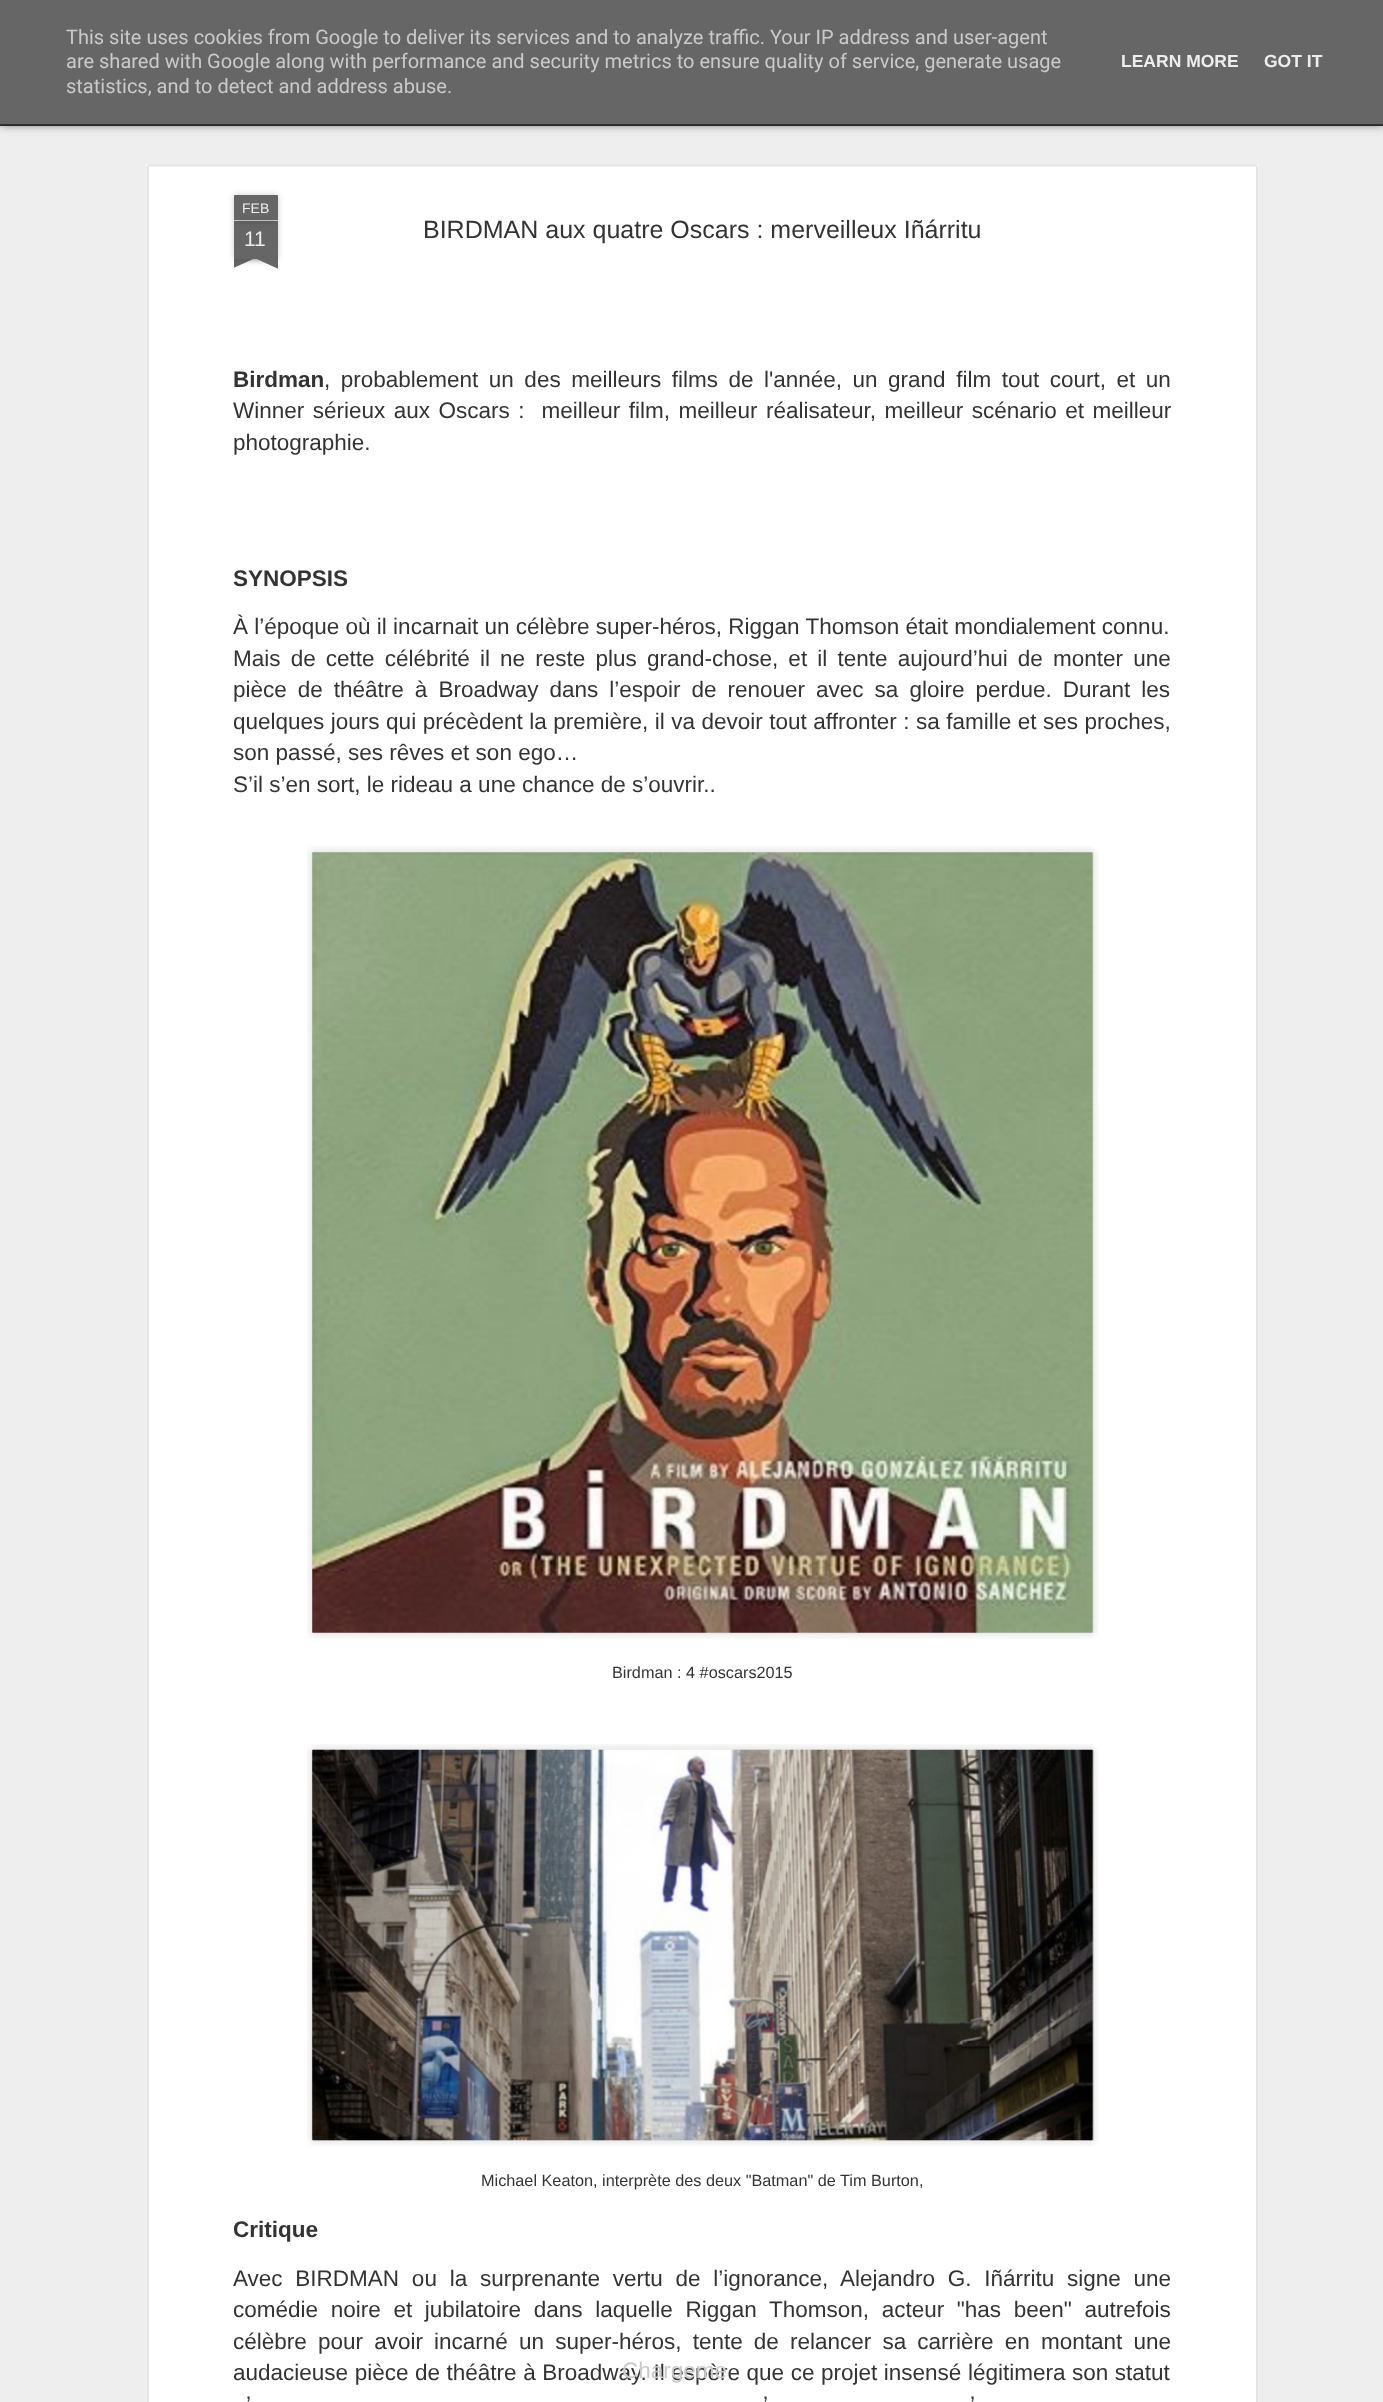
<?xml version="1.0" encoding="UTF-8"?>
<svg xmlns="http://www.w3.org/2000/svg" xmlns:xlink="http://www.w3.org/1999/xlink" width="1383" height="2402">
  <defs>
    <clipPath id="clip1"><rect x="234" y="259" width="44" height="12" /></clipPath>
    <clipPath id="clip2"><rect x="234" y="259" width="44" height="12" /></clipPath>
  </defs>
  <rect width="100%" height="100%" fill="#333333" />
  <rect y="126" width="1383" height="2276" fill="#eeeeee" />
  <rect y="81" width="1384" height="44" fill="#000000" fill-opacity="0.5" filter="blur(5px)" />
  <rect width="1383" height="124" fill="#666666" />
  <rect y="124" width="1383" height="1" fill="#333333" />
  <rect x="146" y="164" width="1113" height="2238" fill="#ffffff" />
  <image x="146" y="164" width="1113" height="2238" xlink:href="image1.png" />
  <rect x="234" y="221" width="44" height="38" fill="#000000" fill-opacity="0.2" filter="blur(3px)" />
  <rect x="234" y="221" width="44" height="38" fill="#666666" />
  <rect x="234" y="195" width="44" height="26" rx="1" fill="#000000" fill-opacity="0.2" filter="blur(3px)" />
  <path d="M 235 195 h 42 c 0.5 0 1 0.5 1 1 v 25 h -44 v -25 c 0 -0.5 0.5 -1 1 -1 z" fill="#666666" />
  <rect x="234" y="220" width="44" height="1" fill="#c2c2c2" />
  <g clip-path="url(#clip1)">
    <rect x="223" y="246" width="62" height="13" fill="#000000" fill-opacity="0.2" filter="blur(3px)" />
  </g>
  <g clip-path="url(#clip2)">
    <path d="M 222 260 l 57 -26 l 5 11 l -57 26 z" fill="#666666" />
  </g>
  <g clip-path="url(#clip1)">
    <rect x="226" y="246" width="63" height="13" fill="#000000" fill-opacity="0.2" filter="blur(3px)" />
  </g>
  <g clip-path="url(#clip2)">
    <path d="M 231 234 l 57 26 l -5 11 l -57 -26 z" fill="#666666" />
  </g>
  <image x="307" y="846" width="792" height="793" xlink:href="image2.png" />
  <image x="312" y="852" width="781" height="781" xlink:href="image3.png" />
  <image x="307" y="1744" width="792" height="402" xlink:href="image4.png" />
  <image x="311" y="1749" width="783" height="392" xlink:href="image5.png" />
  <text x="66" y="44" style="font-family: Roboto; font-size: 20px; fill: #cacaca">This site uses cookies from Google to deliver its services and to analyze traffic. Your IP address and user-agent</text>
  <text x="66" y="68" style="font-family: Roboto; font-size: 20px; fill: #cacaca">are shared with Google along with performance and security metrics to ensure quality of service, generate usage</text>
  <text x="66" y="93" style="font-family: Roboto; font-size: 20px; fill: #cacaca">statistics, and to detect and address abuse.</text>
  <text x="1121" y="67" style="font-family: Liberation Sans; font-size: 17.5px; font-weight: bold; fill: #eeeeee">LEARN MORE</text>
  <text x="1264" y="67" style="font-family: Liberation Sans; font-size: 17.5px; font-weight: bold; fill: #eeeeee">GOT IT</text>
  <text x="242" y="213" style="font-family: Liberation Sans; font-size: 14px; fill: #eeeeee">FEB</text>
  <text x="244" y="246" style="font-family: Liberation Sans; font-size: 21px; fill: #eeeeee">11</text>
  <text x="423" y="238" style="font-family: Liberation Sans; font-size: 25px; fill: #333333">BIRDMAN aux quatre Oscars : merveilleux Iñárritu</text>
  <text x="233" y="387" style="font-family: Liberation Sans; font-size: 22.5px; font-weight: bold; fill: #333333">Birdman</text>
  <text x="324" y="387" word-spacing="4.25" style="font-family: Liberation Sans; font-size: 22.5px; fill: #333333">, probablement un des meilleurs films de l'année, un grand film tout court, et un</text>
  <text x="233" y="418" word-spacing="2.25" style="font-family: Liberation Sans; font-size: 22.5px; fill: #333333" xml:space="preserve">Winner sérieux aux Oscars :  meilleur film, meilleur réalisateur, meilleur scénario et meilleur</text>
  <text x="233" y="450" style="font-family: Liberation Sans; font-size: 22.5px; fill: #333333">photographie.</text>
  <text x="233" y="586" style="font-family: Liberation Sans; font-size: 22.5px; font-weight: bold; fill: #333333">SYNOPSIS</text>
  <text x="233" y="634" style="font-family: Liberation Sans; font-size: 22.5px; fill: #333333">À l’époque où il incarnait un célèbre super-héros, Riggan Thomson était mondialement connu.</text>
  <text x="233" y="666" word-spacing="3.9" style="font-family: Liberation Sans; font-size: 22.5px; fill: #333333">Mais de cette célébrité il ne reste plus grand-chose, et il tente aujourd’hui de monter une</text>
  <text x="233" y="697" word-spacing="4.75" style="font-family: Liberation Sans; font-size: 22.5px; fill: #333333">pièce de théâtre à Broadway dans l’espoir de renouer avec sa gloire perdue. Durant les</text>
  <text x="233" y="729" word-spacing="0.25" style="font-family: Liberation Sans; font-size: 22.5px; fill: #333333">quelques jours qui précèdent la première, il va devoir tout affronter : sa famille et ses proches,</text>
  <text x="233" y="760" style="font-family: Liberation Sans; font-size: 22.5px; fill: #333333">son passé, ses rêves et son ego…</text>
  <text x="233" y="792" style="font-family: Liberation Sans; font-size: 22.5px; fill: #333333">S’il s’en sort, le rideau a une chance de s’ouvrir..</text>
  <text x="612" y="1678" style="font-family: Liberation Sans; font-size: 16.25px; fill: #333333">Birdman : 4 #oscars2015</text>
  <text x="481" y="2186" style="font-family: Liberation Sans; font-size: 16.25px; fill: #333333">Michael Keaton, interprète des deux "Batman" de Tim Burton,</text>
  <text x="233" y="2237" style="font-family: Liberation Sans; font-size: 22.5px; font-weight: bold; fill: #333333">Critique</text>
  <text x="233" y="2286" word-spacing="6.5" style="font-family: Liberation Sans; font-size: 22.5px; fill: #333333">Avec BIRDMAN ou la surprenante vertu de l’ignorance, Alejandro G. Iñárritu signe une</text>
  <text x="233" y="2317" word-spacing="6.4" style="font-family: Liberation Sans; font-size: 22.5px; fill: #333333">comédie noire et jubilatoire dans laquelle Riggan Thomson, acteur "has been" autrefois</text>
  <text x="233" y="2349" word-spacing="4.9" style="font-family: Liberation Sans; font-size: 22.5px; fill: #333333">célèbre pour avoir incarné un super-héros, tente de relancer sa carrière en montant une</text>
  <text x="233" y="2380" word-spacing="0.3" style="font-family: Liberation Sans; font-size: 22.5px; fill: #333333">audacieuse pièce de théâtre à Broadway. Il espère que ce projet insensé légitimera son statut</text>
  <text x="246" y="2412" style="font-family: Liberation Sans; font-size: 22.5px; fill: #333333">’</text>
  <text x="763" y="2412" style="font-family: Liberation Sans; font-size: 22.5px; fill: #333333">’</text>
  <text x="970" y="2412" style="font-family: Liberation Sans; font-size: 22.5px; fill: #333333">’</text>
  <text x="622" y="2378" style="font-family: Liberation Sans; font-size: 22.5px; fill: #cacaca">Chargeme</text>
</svg>
